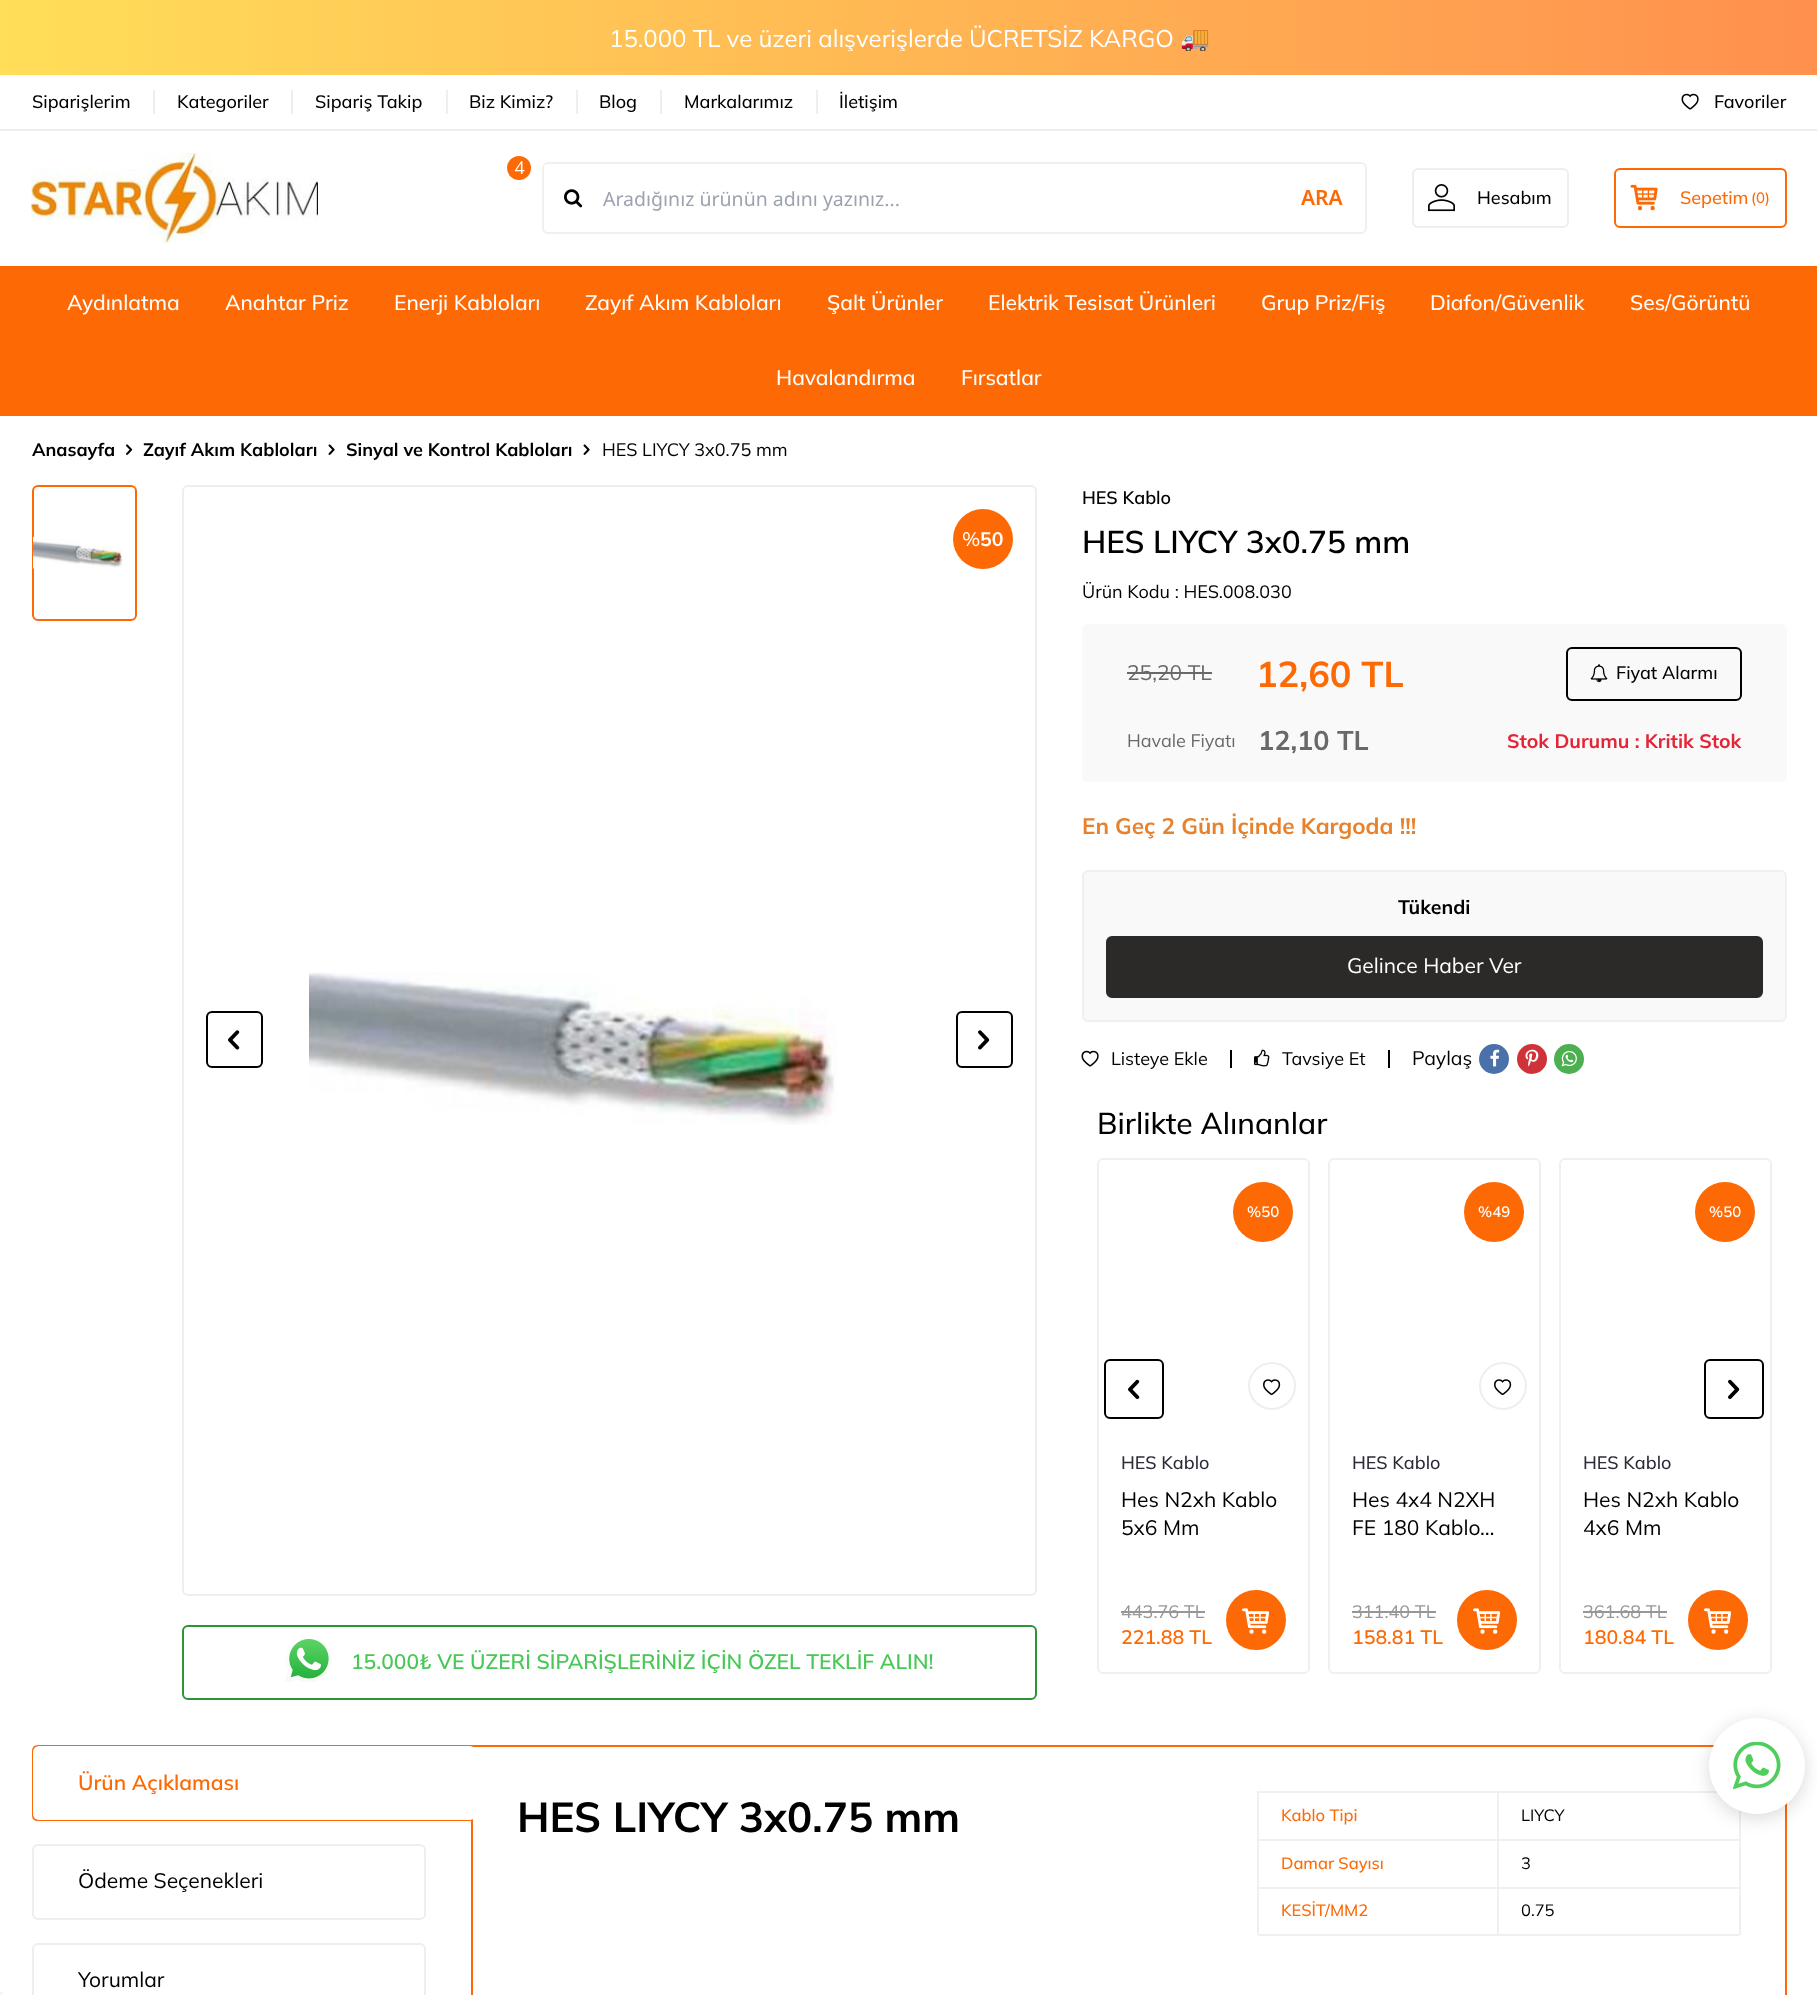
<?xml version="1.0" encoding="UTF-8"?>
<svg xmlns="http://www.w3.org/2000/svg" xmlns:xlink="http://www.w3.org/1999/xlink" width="1817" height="1995">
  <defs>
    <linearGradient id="g1" gradientUnits="userSpaceOnUse" x1="0" y1="38" x2="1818" y2="37"><stop offset="0" stop-color="#ffde59" /><stop offset="1" stop-color="#ff904e" /></linearGradient>
    <clipPath id="clip1"><rect x="24" y="24" width="1770" height="27" /></clipPath>
  </defs>
  <rect width="100%" height="100%" fill="#ffffff" />
  <rect width="1817" height="75" fill="url(#g1)" />
  <rect y="129" width="1817" height="2" fill="#eeeeee" />
  <rect x="153" y="90" width="2" height="24" fill="#eeeeee" />
  <rect x="291" y="90" width="2" height="24" fill="#eeeeee" />
  <rect x="446" y="90" width="2" height="24" fill="#eeeeee" />
  <rect x="576" y="90" width="2" height="24" fill="#eeeeee" />
  <rect x="660" y="90" width="2" height="24" fill="#eeeeee" />
  <rect x="816" y="90" width="2" height="24" fill="#eeeeee" />
  <image x="1681" y="93" width="18" height="17" xlink:href="image1.png" />
  <image x="31" y="153" width="287" height="90" xlink:href="image2.png" />
  <circle cx="519" cy="168" r="12" fill="#fd6905" />
  <rect x="543" y="163" width="823" height="70" rx="5" fill="none" stroke="#f0f0f0" stroke-width="2" />
  <image x="564" y="189" width="19" height="19" xlink:href="image3.png" />
  <rect x="1413" y="169" width="155" height="58" rx="5" fill="none" stroke="#eeeeee" stroke-width="2" />
  <image x="1428" y="184" width="27" height="28" xlink:href="image4.png" />
  <rect x="1615" y="169" width="171" height="58" rx="5" fill="none" stroke="#fd6905" stroke-width="2" />
  <image x="1630" y="184" width="28" height="27" xlink:href="image5.png" />
  <rect y="266" width="1817" height="150" fill="#fd6905" />
  <image x="126" y="444" width="7" height="11" xlink:href="image6.png" />
  <image x="328" y="444" width="7" height="11" xlink:href="image7.png" />
  <image x="583" y="444" width="7" height="11" xlink:href="image7.png" />
  <rect x="33" y="486" width="103" height="134" rx="5" fill="none" stroke="#fd6905" stroke-width="2" />
  <image x="33" y="536" width="90" height="33" xlink:href="image8.png" />
  <rect x="183" y="486" width="853" height="1109" rx="5" fill="none" stroke="#eeeeee" stroke-width="2" />
  <circle cx="983" cy="539" r="30" fill="#fd6905" />
  <rect x="207" y="1012" width="55" height="55" rx="5" fill="none" stroke="#000000" stroke-width="2" />
  <image x="228" y="1030" width="12" height="20" xlink:href="image9.png" />
  <image x="309" y="972" width="528" height="153" xlink:href="image10.png" />
  <rect x="957" y="1012" width="55" height="55" rx="5" fill="none" stroke="#000000" stroke-width="2" />
  <image x="978" y="1030" width="12" height="20" xlink:href="image11.png" />
  <rect x="183" y="1626" width="853" height="73" rx="5" fill="none" stroke="#2c9337" stroke-width="2" />
  <image x="285" y="1639" width="47" height="43" xlink:href="image12.png" />
  <rect x="1082" y="624" width="705" height="158" rx="6" fill="#f9f9f9" />
  <rect x="1127" y="672" width="85" height="2" fill="#696969" />
  <rect x="1567" y="648" width="174" height="52" rx="5" fill="none" stroke="#000000" stroke-width="2" />
  <image x="1590" y="664" width="18" height="19" xlink:href="image13.png" />
  <rect x="1083" y="871" width="703" height="150" rx="5" fill="#f9f9f9" stroke="#f0f0f0" stroke-width="2" />
  <rect x="1107" y="937" width="655" height="60" rx="5" fill="#2c2a28" stroke="#2c2a28" stroke-width="2" />
  <rect x="1230" y="1050" width="2" height="18" fill="#000000" />
  <image x="1081" y="1050" width="18" height="17" xlink:href="image1.png" />
  <rect x="1388" y="1050" width="2" height="18" fill="#000000" />
  <image x="1254" y="1049" width="16" height="18" xlink:href="image14.png" />
  <circle cx="1494" cy="1059" r="15" fill="#4a71a9" />
  <image x="1490" y="1049" width="10" height="18" xlink:href="image15.png" />
  <circle cx="1532" cy="1059" r="15" fill="#cd3339" />
  <image x="1525" y="1049" width="14" height="18" xlink:href="image16.png" />
  <circle cx="1569" cy="1059" r="15" fill="#4caf50" />
  <image x="1561" y="1050" width="16" height="17" xlink:href="image17.png" />
  <rect x="1098" y="1159" width="211" height="514" rx="5" fill="none" stroke="#f0f0f0" stroke-width="2" />
  <circle cx="1263" cy="1212" r="30" fill="#fd6905" />
  <circle cx="1272" cy="1386" r="23" fill="none" stroke="#eeeeee" stroke-width="2" />
  <image x="1263" y="1379" width="18" height="17" xlink:href="image18.png" />
  <rect x="1121" y="1611" width="84" height="2" fill="#979797" />
  <circle cx="1256" cy="1620" r="29" fill="#fd6905" stroke="#fd6905" stroke-width="2" />
  <image x="1242" y="1608" width="28" height="26" xlink:href="image19.png" />
  <rect x="1329" y="1159" width="211" height="514" rx="5" fill="none" stroke="#f0f0f0" stroke-width="2" />
  <circle cx="1494" cy="1212" r="30" fill="#fd6905" />
  <circle cx="1503" cy="1386" r="23" fill="none" stroke="#eeeeee" stroke-width="2" />
  <image x="1494" y="1379" width="18" height="17" xlink:href="image18.png" />
  <rect x="1352" y="1611" width="84" height="2" fill="#979797" />
  <circle cx="1487" cy="1620" r="29" fill="#fd6905" stroke="#fd6905" stroke-width="2" />
  <image x="1473" y="1608" width="28" height="26" xlink:href="image19.png" />
  <rect x="1560" y="1159" width="211" height="514" rx="5" fill="none" stroke="#f0f0f0" stroke-width="2" />
  <circle cx="1725" cy="1212" r="30" fill="#fd6905" />
  <rect x="1583" y="1611" width="84" height="2" fill="#979797" />
  <circle cx="1718" cy="1620" r="29" fill="#fd6905" stroke="#fd6905" stroke-width="2" />
  <image x="1704" y="1608" width="28" height="26" xlink:href="image19.png" />
  <rect x="1105" y="1360" width="58" height="58" rx="5" fill="none" stroke="#000000" stroke-width="2" />
  <image x="1128" y="1379" width="12" height="20" xlink:href="image20.png" />
  <rect x="1705" y="1360" width="58" height="58" rx="5" fill="none" stroke="#000000" stroke-width="2" />
  <image x="1728" y="1379" width="12" height="20" xlink:href="image21.png" />
  <path d="M 38 1746 h 432 v 74 h -432 c -3 0 -5 -2 -5 -5 v -64 c 0 -3 2 -5 5 -5 z" fill="none" stroke="#fd6905" stroke-width="2" />
  <rect x="472" y="1746" width="1314" height="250" fill="none" stroke="#fd6905" stroke-width="2" />
  <rect x="33" y="1746" width="443" height="74" rx="6" fill="#ffffff" />
  <rect x="33" y="1845" width="392" height="74" rx="5" fill="none" stroke="#eeeeee" stroke-width="2" />
  <rect x="33" y="1944" width="392" height="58" rx="5" fill="none" stroke="#eeeeee" stroke-width="2" />
  <rect x="1257" y="1791" width="461" height="2" fill="#f0f0f0" />
  <rect x="1739" y="1810" width="2" height="125" fill="#f0f0f0" />
  <rect x="1257" y="1791" width="2" height="144" fill="#f0f0f0" />
  <rect x="1259" y="1839" width="480" height="2" fill="#f0f0f0" />
  <rect x="1497" y="1793" width="2" height="46" fill="#f0f0f0" />
  <rect x="1259" y="1887" width="480" height="2" fill="#f0f0f0" />
  <rect x="1497" y="1841" width="2" height="46" fill="#f0f0f0" />
  <rect x="1259" y="1934" width="480" height="2" fill="#f0f0f0" />
  <rect x="1497" y="1889" width="2" height="45" fill="#f0f0f0" />
  <rect x="1709" y="1722" width="96" height="96" rx="48" fill="#000000" fill-opacity="0.15" filter="blur(9px)" />
  <circle cx="1757" cy="1766" r="48" fill="#ffffff" />
  <image x="1733" y="1742" width="48" height="48" xlink:href="image22.png" />
  <rect y="1992" width="3" height="3" fill="#f5f5f5" />
  <g clip-path="url(#clip1)">
    <text x="609" y="47" style="font-family: Mulish; font-size: 24px; fill: #ffffff">15.000 TL ve üzeri alışverişlerde ÜCRETSİZ KARGO</text>
    <text x="1180" y="47" style="font-family: Noto Color Emoji; font-size: 24px; fill: #ffffff">🚚</text>
  </g>
  <text x="32" y="108" style="font-family: Mulish; font-size: 18px; font-weight: 500; fill: #000000">Siparişlerim</text>
  <text x="177" y="108" style="font-family: Mulish; font-size: 18px; font-weight: 500; fill: #000000">Kategoriler</text>
  <text x="315" y="108" style="font-family: Mulish; font-size: 18px; font-weight: 500; fill: #000000">Sipariş Takip</text>
  <text x="469" y="108" style="font-family: Mulish; font-size: 18px; font-weight: 500; fill: #000000">Biz Kimiz?</text>
  <text x="599" y="108" style="font-family: Mulish; font-size: 18px; font-weight: 500; fill: #000000">Blog</text>
  <text x="684" y="108" style="font-family: Mulish; font-size: 18px; font-weight: 500; fill: #000000">Markalarımız</text>
  <text x="839" y="108" style="font-family: Mulish; font-size: 18px; font-weight: 500; fill: #000000">İletişim</text>
  <text x="1714" y="108" style="font-family: Mulish; font-size: 18px; font-weight: 500; fill: #000000">Favoriler</text>
  <text x="514" y="174" style="font-family: Mulish; font-size: 18px; fill: #ffffff">4</text>
  <text x="603" y="206" style="font-family: Noto Sans; font-size: 19.5px; fill: #9ca3af">Aradığınız ürünün adını yazınız...</text>
  <text x="1301" y="205" style="font-family: Noto Sans; font-size: 21px; font-weight: 600; fill: #fd6905">ARA</text>
  <text x="1477" y="204" style="font-family: Mulish; font-size: 18px; font-weight: 500; fill: #000000">Hesabım</text>
  <text x="1680" y="204" style="font-family: Mulish; font-size: 18px; font-weight: 500; fill: #fd6905">Sepetim</text>
  <text x="1751" y="203" style="font-family: Mulish; font-size: 15px; font-weight: 500; fill: #fd6905">(0)</text>
  <text x="67" y="310" style="font-family: Mulish; font-size: 21px; font-weight: 500; fill: #ffffff">Aydınlatma</text>
  <text x="225" y="310" style="font-family: Mulish; font-size: 21px; font-weight: 500; fill: #ffffff">Anahtar Priz</text>
  <text x="394" y="310" style="font-family: Mulish; font-size: 21px; font-weight: 500; fill: #ffffff">Enerji Kabloları</text>
  <text x="585" y="310" style="font-family: Mulish; font-size: 21px; font-weight: 500; fill: #ffffff">Zayıf Akım Kabloları</text>
  <text x="827" y="310" style="font-family: Mulish; font-size: 21px; font-weight: 500; fill: #ffffff">Şalt Ürünler</text>
  <text x="988" y="310" style="font-family: Mulish; font-size: 21px; font-weight: 500; fill: #ffffff">Elektrik Tesisat Ürünleri</text>
  <text x="1261" y="310" style="font-family: Mulish; font-size: 21px; font-weight: 500; fill: #ffffff">Grup Priz/Fiş</text>
  <text x="1430" y="310" style="font-family: Mulish; font-size: 21px; font-weight: 500; fill: #ffffff">Diafon/Güvenlik</text>
  <text x="1630" y="310" style="font-family: Mulish; font-size: 21px; font-weight: 500; fill: #ffffff">Ses/Görüntü</text>
  <text x="776" y="385" style="font-family: Mulish; font-size: 21px; font-weight: 500; fill: #ffffff">Havalandırma</text>
  <text x="961" y="385" style="font-family: Mulish; font-size: 21px; font-weight: 500; fill: #ffffff">Fırsatlar</text>
  <text x="32" y="456" style="font-family: Mulish; font-size: 18px; font-weight: bold; fill: #000000">Anasayfa</text>
  <text x="143" y="456" style="font-family: Mulish; font-size: 18px; font-weight: bold; fill: #000000">Zayıf Akım Kabloları</text>
  <text x="346" y="456" style="font-family: Mulish; font-size: 18px; font-weight: bold; fill: #000000">Sinyal ve Kontrol Kabloları</text>
  <text x="602" y="456" style="font-family: Mulish; font-size: 18px; fill: #000000">HES LIYCY 3x0.75 mm</text>
  <text x="962" y="546" style="font-family: Mulish; font-size: 19.5px; fill: #ffffff">%</text>
  <text x="980" y="546" style="font-family: Mulish; font-size: 19.5px; font-weight: bold; fill: #ffffff">50</text>
  <text x="351" y="1669" style="font-family: Mulish; font-size: 21px; font-weight: 600; fill: #49c857">15.000₺ VE ÜZERİ SİPARİŞLERİNİZ İÇİN ÖZEL TEKLİF ALIN!</text>
  <text x="1082" y="504" style="font-family: Mulish; font-size: 18px; font-weight: 600; fill: #000000">HES Kablo</text>
  <text x="1082" y="553" style="font-family: Mulish; font-size: 31.5px; font-weight: 600; fill: #000000">HES LIYCY 3x0.75 mm</text>
  <text x="1082" y="598" style="font-family: Mulish; font-size: 18px; fill: #000000">Ürün Kodu : HES.008.030</text>
  <text x="1127" y="680" style="font-family: Mulish; font-size: 21px; fill: #696969">25,20 TL</text>
  <text x="1256" y="687" style="font-family: Mulish; font-size: 36px; font-weight: bold; fill: #fd6905">12,60 TL</text>
  <text x="1616" y="679" style="font-family: Mulish; font-size: 18px; font-weight: 500; fill: #000000">Fiyat Alarmı</text>
  <text x="1127" y="747" style="font-family: Mulish; font-size: 18px; fill: #696969">Havale Fiyatı</text>
  <text x="1258" y="750" style="font-family: Mulish; font-size: 27px; font-weight: bold; fill: #696969">12,10 TL</text>
  <text x="1507" y="748" style="font-family: Mulish; font-size: 19.5px; font-weight: bold; fill: #e42437">Stok Durumu : Kritik Stok</text>
  <text x="1082" y="834" style="font-family: Mulish; font-size: 22.5px; font-weight: bold; fill: #e8812c">En Geç 2 Gün İçinde Kargoda !!!</text>
  <text x="1398" y="914" style="font-family: Mulish; font-size: 19.5px; font-weight: bold; fill: #000000">Tükendi</text>
  <text x="1347" y="973" style="font-family: Mulish; font-size: 21px; fill: #ffffff">Gelince Haber Ver</text>
  <text x="1111" y="1065" style="font-family: Mulish; font-size: 18px; fill: #000000">Listeye Ekle</text>
  <text x="1282" y="1065" style="font-family: Mulish; font-size: 18px; fill: #000000">Tavsiye Et</text>
  <text x="1412" y="1065" style="font-family: Mulish; font-size: 19.5px; fill: #000000">Paylaş</text>
  <text x="1097" y="1134" style="font-family: Mulish; font-size: 30px; font-weight: 500; fill: #000000">Birlikte Alınanlar</text>
  <text x="1247" y="1217" style="font-family: Mulish; font-size: 15px; font-weight: 600; fill: #ffffff">%50</text>
  <text x="1121" y="1469" style="font-family: Mulish; font-size: 18px; font-weight: 500; fill: #2b2b38">HES Kablo</text>
  <text x="1121" y="1507" style="font-family: Mulish; font-size: 21px; fill: #000000">Hes N2xh Kablo</text>
  <text x="1121" y="1535" style="font-family: Mulish; font-size: 21px; fill: #000000">5x6 Mm</text>
  <text x="1121" y="1618" style="font-family: Mulish; font-size: 18px; fill: #979797">443.76 TL</text>
  <text x="1121" y="1644" style="font-family: Mulish; font-size: 19.5px; font-weight: 600; fill: #fd6905">221.88 TL</text>
  <text x="1478" y="1217" style="font-family: Mulish; font-size: 15px; font-weight: 600; fill: #ffffff">%49</text>
  <text x="1352" y="1469" style="font-family: Mulish; font-size: 18px; font-weight: 500; fill: #2b2b38">HES Kablo</text>
  <text x="1352" y="1507" style="font-family: Mulish; font-size: 21px; fill: #000000">Hes 4x4 N2XH</text>
  <text x="1352" y="1535" style="font-family: Mulish; font-size: 21px; fill: #000000">FE 180 Kablo…</text>
  <text x="1352" y="1618" style="font-family: Mulish; font-size: 18px; fill: #979797">311.40 TL</text>
  <text x="1352" y="1644" style="font-family: Mulish; font-size: 19.5px; font-weight: 600; fill: #fd6905">158.81 TL</text>
  <text x="1709" y="1217" style="font-family: Mulish; font-size: 15px; font-weight: 600; fill: #ffffff">%50</text>
  <text x="1583" y="1469" style="font-family: Mulish; font-size: 18px; font-weight: 500; fill: #2b2b38">HES Kablo</text>
  <text x="1583" y="1507" style="font-family: Mulish; font-size: 21px; fill: #000000">Hes N2xh Kablo</text>
  <text x="1583" y="1535" style="font-family: Mulish; font-size: 21px; fill: #000000">4x6 Mm</text>
  <text x="1583" y="1618" style="font-family: Mulish; font-size: 18px; fill: #979797">361.68 TL</text>
  <text x="1583" y="1644" style="font-family: Mulish; font-size: 19.5px; font-weight: 600; fill: #fd6905">180.84 TL</text>
  <text x="78" y="1790" style="font-family: Mulish; font-size: 21px; font-weight: 600; fill: #fd6905">Ürün Açıklaması</text>
  <text x="78" y="1888" style="font-family: Mulish; font-size: 21px; fill: #000000">Ödeme Seçenekleri</text>
  <text x="78" y="1987" style="font-family: Mulish; font-size: 21px; fill: #000000">Yorumlar</text>
  <text x="517" y="1832" style="font-family: Mulish; font-size: 42px; font-weight: bold; fill: #000000">HES LIYCY 3x0.75 mm</text>
  <text x="1281" y="1821" style="font-family: Mulish; font-size: 16.5px; font-weight: 500; fill: #fd6905">Kablo Tipi</text>
  <text x="1521" y="1821" style="font-family: Mulish; font-size: 16.5px; fill: #000000">LIYCY</text>
  <text x="1281" y="1869" style="font-family: Mulish; font-size: 16.5px; font-weight: 500; fill: #fd6905">Damar Sayısı</text>
  <text x="1521" y="1869" style="font-family: Mulish; font-size: 16.5px; fill: #000000">3</text>
  <text x="1281" y="1916" style="font-family: Mulish; font-size: 16.5px; font-weight: 500; fill: #fd6905">KESİT/MM2</text>
  <text x="1521" y="1916" style="font-family: Mulish; font-size: 16.5px; fill: #000000">0.75</text>
</svg>
